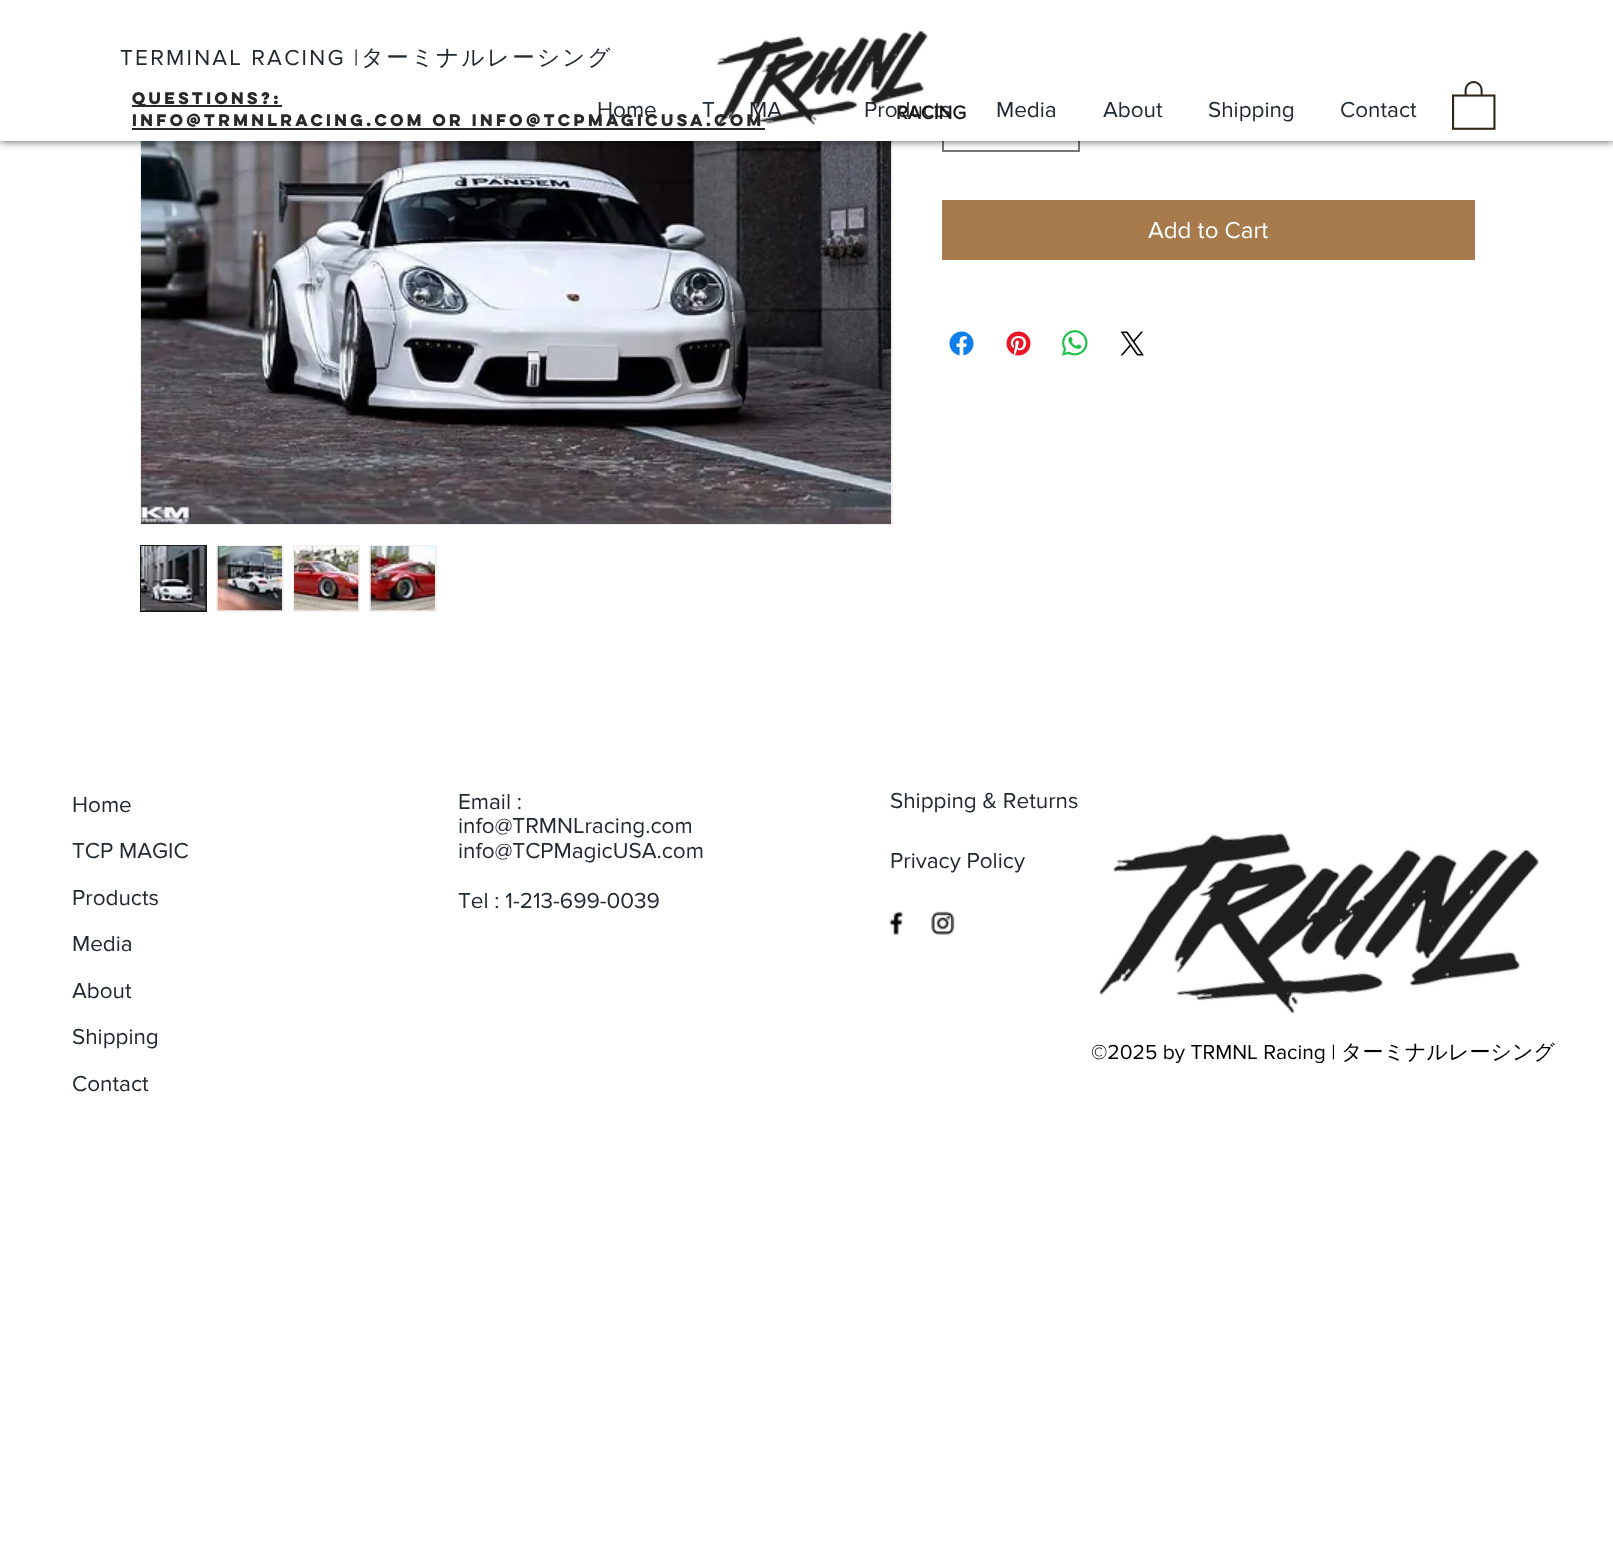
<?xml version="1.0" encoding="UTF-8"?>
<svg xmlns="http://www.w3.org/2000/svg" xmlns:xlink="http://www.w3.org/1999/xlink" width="1613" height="1548">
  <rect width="100%" height="100%" fill="#ffffff" />
  <rect x="141" y="-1" width="751" height="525" fill="none" stroke="#f0f0f0" stroke-width="2" />
  <image x="141" y="141" width="750" height="383" xlink:href="image3.png" />
  <rect x="943" y="97" width="136" height="54" fill="none" stroke="#767676" stroke-width="2" />
  <rect width="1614" height="141" fill="#000000" fill-opacity="0.7" filter="blur(4px)" />
  <rect width="1613" height="141" fill="#ffffff" />
  <rect x="132" y="105" width="150" height="2" fill="#292929" />
  <rect x="132" y="128" width="633" height="2" fill="#292929" />
  <image x="1452" y="81" width="44" height="49" xlink:href="image1.png" />
  <rect x="141" y="546" width="65" height="65" fill="none" stroke="#1a1a1a" stroke-width="2" />
  <image x="141" y="546" width="65" height="65" xlink:href="image4.png" />
  <rect x="217" y="546" width="66" height="65" fill="none" stroke="#f0f0f0" stroke-width="2" />
  <image x="217" y="546" width="65" height="65" xlink:href="image5.png" />
  <rect x="294" y="546" width="65" height="65" fill="none" stroke="#f0f0f0" stroke-width="2" />
  <image x="294" y="546" width="65" height="65" xlink:href="image6.png" />
  <rect x="370" y="546" width="66" height="65" fill="none" stroke="#f0f0f0" stroke-width="2" />
  <image x="370" y="546" width="65" height="65" xlink:href="image7.png" />
  <rect x="942" y="200" width="533" height="60" fill="#a67a4b" />
  <image x="949" y="331" width="25" height="25" xlink:href="image8.png" />
  <image x="1006" y="331" width="25" height="25" xlink:href="image9.png" />
  <image x="1062" y="330" width="26" height="26" xlink:href="image10.png" />
  <image x="1120" y="331" width="24" height="25" xlink:href="image11.png" />
  <image x="889" y="911" width="15" height="24" xlink:href="image12.png" />
  <image x="931" y="911" width="24" height="24" xlink:href="image13.png" />
  <image x="1099" y="833" width="440" height="181" xlink:href="image14.png" />
  <text x="120" y="65" style="font-family: 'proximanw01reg'; font-size: 22.5px; letter-spacing: 2.25px; fill: #222a31">TERMINAL RACING |</text>
  <text x="361" y="65" style="font-family: WenQuanYi Zen Hei; font-size: 22.5px; font-weight: 500; letter-spacing: 2.25px; fill: #222a31">ターミナルレーシング</text>
  <text x="132" y="104" style="font-family: 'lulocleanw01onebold'; font-size: 15px; font-weight: bold; fill: #292929">Questions?:</text>
  <text x="132" y="126" style="font-family: 'lulocleanw01onebold'; font-size: 15px; font-weight: bold; fill: #292929">info@TRMNLRacing.com or INFO@TCPMAGICUSA.com</text>
  <text x="597" y="117" style="font-family: 'proximanw01reg'; font-size: 22.5px; fill: #222a31">Home</text>
  <text x="702" y="117" style="font-family: 'proximanw01reg'; font-size: 22.5px; fill: #222a31">T</text>
  <text x="749" y="117" style="font-family: 'proximanw01reg'; font-size: 22.5px; fill: #222a31">MA</text>
  <text x="864" y="117" style="font-family: 'proximanw01reg'; font-size: 22.5px; fill: #222a31">Products</text>
  <text x="996" y="117" style="font-family: 'proximanw01reg'; font-size: 22.5px; fill: #222a31">Media</text>
  <text x="1103" y="117" style="font-family: 'proximanw01reg'; font-size: 22.5px; fill: #222a31">About</text>
  <text x="1208" y="117" style="font-family: 'proximanw01reg'; font-size: 22.5px; fill: #222a31">Shipping</text>
  <text x="1340" y="117" style="font-family: 'proximanw01reg'; font-size: 22.5px; fill: #222a31">Contact</text>
  <image x="717" y="30" width="211" height="97" xlink:href="image2.png" />
  <text x="896" y="119" style="font-family: 'proximanw01reg'; font-size: 19.5px; font-weight: bold; fill: #1a1a1a">RACING</text>
  <text x="1148" y="238" style="font-family: 'proximanw01reg'; font-size: 24px; fill: #ffffff">Add to Cart</text>
  <text x="72" y="812" style="font-family: 'proximanw01reg'; font-size: 22.5px; fill: #222a31">Home</text>
  <text x="72" y="858" style="font-family: 'proximanw01reg'; font-size: 22.5px; fill: #222a31">TCP MAGIC</text>
  <text x="72" y="905" style="font-family: 'proximanw01reg'; font-size: 22.5px; fill: #222a31">Products</text>
  <text x="72" y="951" style="font-family: 'proximanw01reg'; font-size: 22.5px; fill: #222a31">Media</text>
  <text x="72" y="998" style="font-family: 'proximanw01reg'; font-size: 22.5px; fill: #222a31">About</text>
  <text x="72" y="1044" style="font-family: 'proximanw01reg'; font-size: 22.5px; fill: #222a31">Shipping</text>
  <text x="72" y="1091" style="font-family: 'proximanw01reg'; font-size: 22.5px; fill: #222a31">Contact</text>
  <text x="458" y="809" style="font-family: 'proximanw01reg'; font-size: 22.5px; fill: #222a31">Email :</text>
  <text x="458" y="833" style="font-family: 'proximanw01reg'; font-size: 22.5px; fill: #222a31">info@TRMNLracing.com</text>
  <text x="458" y="858" style="font-family: 'proximanw01reg'; font-size: 22.5px; fill: #222a31">info@TCPMagicUSA.com</text>
  <text x="458" y="908" style="font-family: 'proximanw01reg'; font-size: 22.5px; fill: #222a31">Tel : 1-213-699-0039</text>
  <text x="890" y="808" style="font-family: 'proximanw01reg'; font-size: 22.5px; fill: #222a31">Shipping &amp; Returns</text>
  <text x="890" y="868" style="font-family: 'proximanw01reg'; font-size: 22.5px; fill: #222a31">Privacy Policy</text>
  <text x="1091" y="1059" style="font-family: 'proximanw01reg'; font-size: 21px; fill: #000000">©2025 by TRMNL Racing |</text>
  <text x="1341" y="1059" style="font-family: WenQuanYi Zen Hei; font-size: 21px; font-weight: 500; fill: #000000">ターミナルレーシング</text>
</svg>
